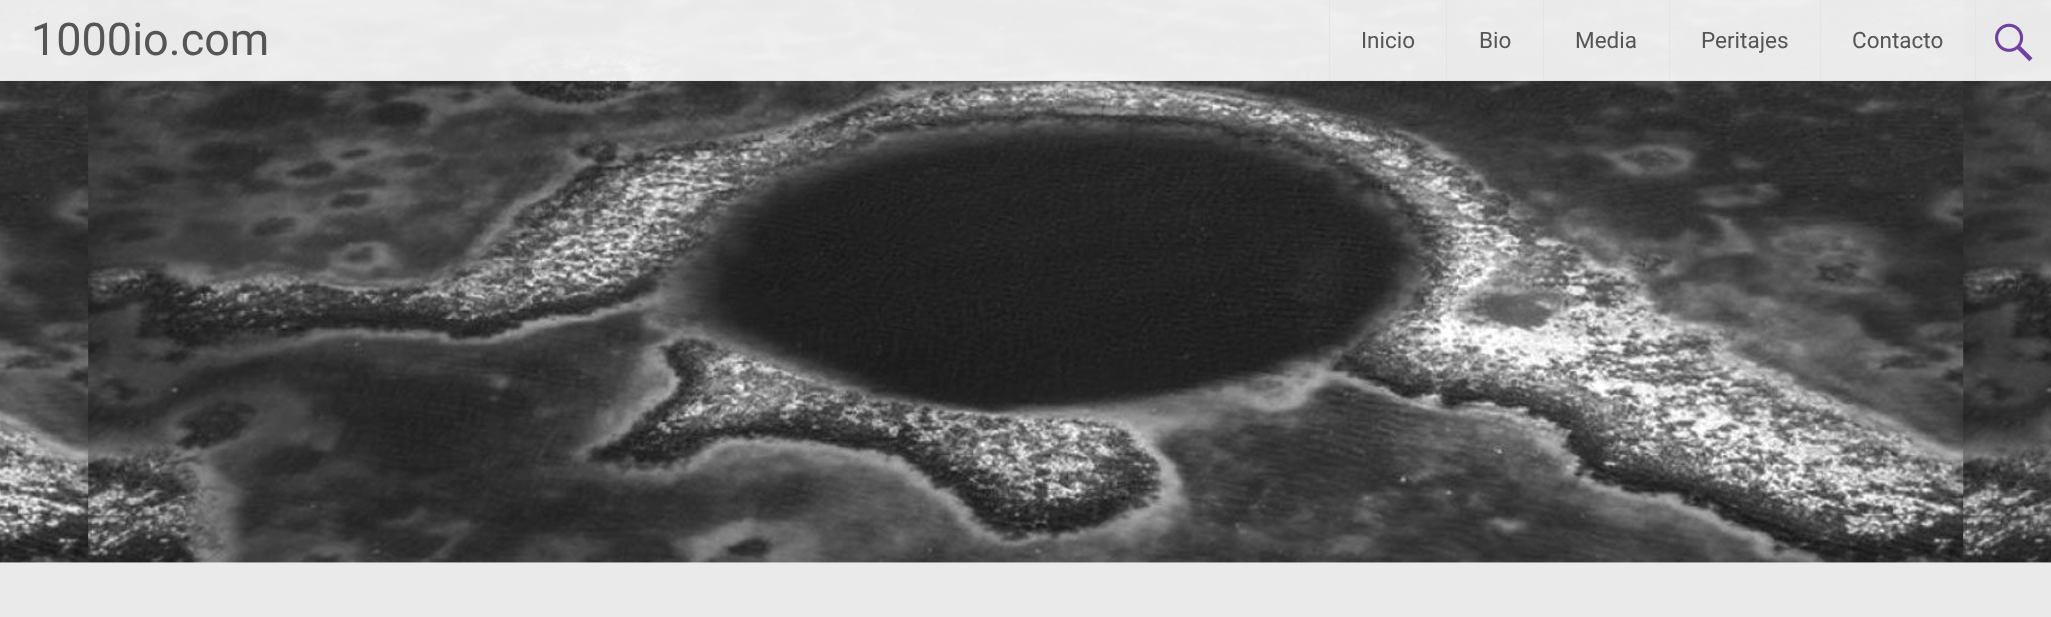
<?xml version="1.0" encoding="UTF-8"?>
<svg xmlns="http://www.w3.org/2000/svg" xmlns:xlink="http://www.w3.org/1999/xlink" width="2051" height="617">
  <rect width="100%" height="100%" fill="#ffffff" />
  <image x="0" y="0" width="2051" height="563" xlink:href="image1.png" />
  <rect width="2051" height="81" fill="#ffffff" fill-opacity="0.9" />
  <rect y="80" width="2051" height="1" fill="#e1e4e6" fill-opacity="0.9" />
  <rect x="1329" width="1" height="80" fill="#e1e4e6" fill-opacity="0.9" />
  <rect x="1446" width="1" height="80" fill="#e2e5e6" />
  <rect x="1543" width="1" height="80" fill="#e1e4e6" fill-opacity="0.9" />
  <rect x="1669" width="1" height="80" fill="#e1e4e6" fill-opacity="0.9" />
  <rect x="1820" width="1" height="80" fill="#e2e5e6" />
  <rect x="1975" width="1" height="80" fill="#e2e5e6" />
  <image x="1995" y="23" width="38" height="39" xlink:href="image2.png" />
  <rect y="563" width="2051" height="54" fill="#eaeaea" />
  <text x="31" y="55" style="font-family: Roboto; font-size: 45px; fill: #555555">1000io.com</text>
  <text x="1361" y="48" style="font-family: Roboto; font-size: 22.5px; fill: #555555">Inicio</text>
  <text x="1479" y="48" style="font-family: Roboto; font-size: 22.5px; fill: #555555">Bio</text>
  <text x="1575" y="48" style="font-family: Roboto; font-size: 22.5px; fill: #555555">Media</text>
  <text x="1701" y="48" style="font-family: Roboto; font-size: 22.5px; fill: #555555">Peritajes</text>
  <text x="1852" y="48" style="font-family: Roboto; font-size: 22.5px; fill: #555555">Contacto</text>
</svg>
